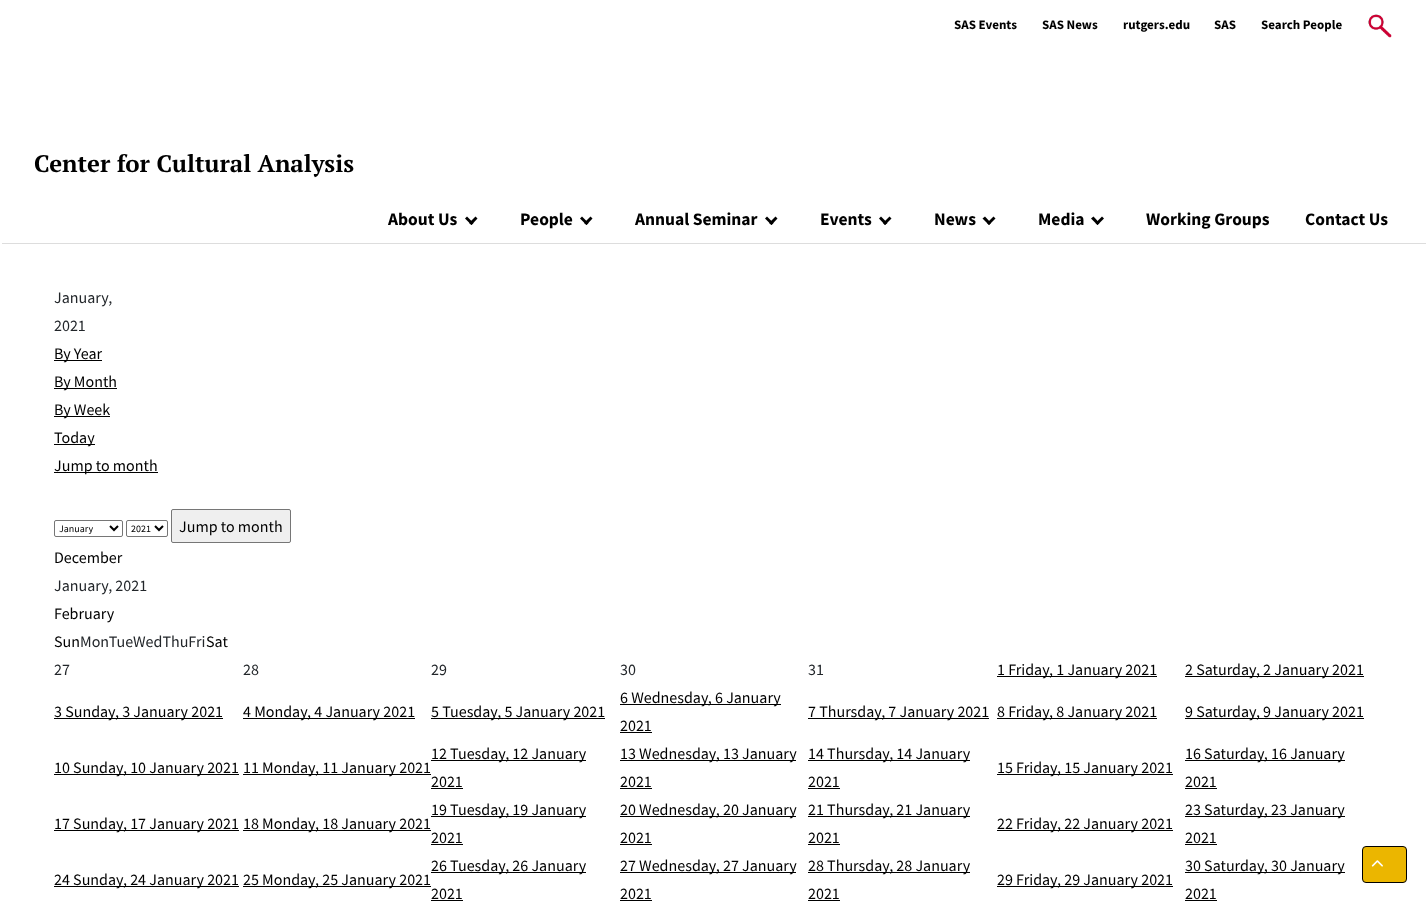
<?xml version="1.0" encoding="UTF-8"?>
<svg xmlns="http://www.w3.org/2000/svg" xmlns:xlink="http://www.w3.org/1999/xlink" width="1428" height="913">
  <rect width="100%" height="100%" fill="#ffffff" />
  <image x="1368" y="14" width="24" height="24" xlink:href="image1.png" />
  <rect x="2" y="243" width="1424" height="1" fill="#dddddd" />
  <path d="M 475.5 216.5 l 2 2 l -6 6.5 l -2.5 -2 z" fill="#000000" />
  <path d="M 467 216.5 l 6.5 6.5 l -2 2 l -6.5 -6.5 z" fill="#000000" />
  <path d="M 590.5 216.5 l 2 2 l -6 6.5 l -2.5 -2 z" fill="#000000" />
  <path d="M 582 216.5 l 6.5 6.5 l -2 2 l -6.5 -6.5 z" fill="#000000" />
  <path d="M 775.5 216.5 l 2 2 l -6 6.5 l -2.5 -2 z" fill="#000000" />
  <path d="M 767 216.5 l 6.5 6.5 l -2 2 l -6.5 -6.5 z" fill="#000000" />
  <path d="M 889.5 216.5 l 2 2 l -6.5 6.5 l -2 -2 z" fill="#000000" />
  <path d="M 881 216.5 l 6.5 6.5 l -2.5 2 l -6 -6.5 z" fill="#000000" />
  <path d="M 993.5 216.5 l 2 2 l -6.5 6.5 l -2 -2 z" fill="#000000" />
  <path d="M 985 216.5 l 6 6.5 l -2 2 l -6.5 -6.5 z" fill="#000000" />
  <path d="M 1102 216.5 l 2 2 l -6.5 6.5 l -2 -2 z" fill="#000000" />
  <path d="M 1093.5 216.5 l 6 6.5 l -2 2 l -6.5 -6.5 z" fill="#000000" />
  <rect x="54" y="360" width="48" height="1" fill="#000000" />
  <rect x="54" y="388" width="63" height="1" fill="#000000" />
  <rect x="54" y="416" width="56" height="1" fill="#000000" />
  <rect x="54" y="444" width="41" height="1" fill="#000000" />
  <rect x="54" y="472" width="104" height="1" fill="#000000" />
  <rect x="54.5" y="520.5" width="68" height="16" rx="1.5" fill="none" stroke="#767676" />
  <path d="M 110 526 l 4 4 l 4 -4" fill="none" stroke="#000000" stroke-width="2" />
  <rect x="126.5" y="520.5" width="41" height="16" rx="1.5" fill="none" stroke="#767676" />
  <path d="M 155 526 l 4 4 l 4 -4" fill="none" stroke="#000000" stroke-width="2" />
  <rect x="171.5" y="509.5" width="119" height="33" rx="1.5" fill="#efefef" stroke="#767676" />
  <rect x="997" y="676" width="160" height="1" fill="#000000" />
  <rect x="1185" y="676" width="179" height="1" fill="#000000" />
  <rect x="54" y="718" width="169" height="1" fill="#000000" />
  <rect x="243" y="718" width="172" height="1" fill="#000000" />
  <rect x="431" y="718" width="174" height="1" fill="#000000" />
  <rect x="620" y="704" width="161" height="1" fill="#000000" />
  <rect x="620" y="732" width="32" height="1" fill="#000000" />
  <rect x="808" y="718" width="181" height="1" fill="#000000" />
  <rect x="997" y="718" width="160" height="1" fill="#000000" />
  <rect x="1185" y="718" width="179" height="1" fill="#000000" />
  <rect x="54" y="774" width="185" height="1" fill="#000000" />
  <rect x="243" y="774" width="188" height="1" fill="#000000" />
  <rect x="431" y="760" width="155" height="1" fill="#000000" />
  <rect x="431" y="788" width="32" height="1" fill="#000000" />
  <rect x="620" y="760" width="176" height="1" fill="#000000" />
  <rect x="620" y="788" width="32" height="1" fill="#000000" />
  <rect x="808" y="760" width="162" height="1" fill="#000000" />
  <rect x="808" y="788" width="32" height="1" fill="#000000" />
  <rect x="997" y="774" width="176" height="1" fill="#000000" />
  <rect x="1185" y="760" width="160" height="1" fill="#000000" />
  <rect x="1185" y="788" width="32" height="1" fill="#000000" />
  <rect x="54" y="830" width="185" height="1" fill="#000000" />
  <rect x="243" y="830" width="188" height="1" fill="#000000" />
  <rect x="431" y="816" width="155" height="1" fill="#000000" />
  <rect x="431" y="844" width="32" height="1" fill="#000000" />
  <rect x="620" y="816" width="176" height="1" fill="#000000" />
  <rect x="620" y="844" width="32" height="1" fill="#000000" />
  <rect x="808" y="816" width="162" height="1" fill="#000000" />
  <rect x="808" y="844" width="32" height="1" fill="#000000" />
  <rect x="997" y="830" width="176" height="1" fill="#000000" />
  <rect x="1185" y="816" width="160" height="1" fill="#000000" />
  <rect x="1185" y="844" width="32" height="1" fill="#000000" />
  <rect x="54" y="886" width="185" height="1" fill="#000000" />
  <rect x="243" y="886" width="188" height="1" fill="#000000" />
  <rect x="431" y="872" width="155" height="1" fill="#000000" />
  <rect x="431" y="900" width="32" height="1" fill="#000000" />
  <rect x="620" y="872" width="176" height="1" fill="#000000" />
  <rect x="620" y="900" width="32" height="1" fill="#000000" />
  <rect x="808" y="872" width="162" height="1" fill="#000000" />
  <rect x="808" y="900" width="32" height="1" fill="#000000" />
  <rect x="997" y="886" width="176" height="1" fill="#000000" />
  <rect x="1185" y="872" width="160" height="1" fill="#000000" />
  <rect x="1185" y="900" width="32" height="1" fill="#000000" />
  <rect x="1362.5" y="846.5" width="44" height="36" rx="3.5" fill="#ebb600" stroke="#000000" />
  <image x="1371" y="860" width="12" height="7" xlink:href="image2.png" />
  <text x="954" y="29" style="font-family: Source Sans Pro; font-size: 13px; font-weight: bold; fill: #000000">SAS Events</text>
  <text x="1042" y="29" style="font-family: Source Sans Pro; font-size: 13px; font-weight: bold; fill: #000000">SAS News</text>
  <text x="1123" y="29" style="font-family: Source Sans Pro; font-size: 13px; font-weight: bold; fill: #000000">rutgers.edu</text>
  <text x="1214" y="29" style="font-family: Source Sans Pro; font-size: 13px; font-weight: bold; fill: #000000">SAS</text>
  <text x="1261" y="29" style="font-family: Source Sans Pro; font-size: 13px; font-weight: bold; fill: #000000">Search People</text>
  <text x="34" y="172" style="font-family: PT Serif; font-size: 24px; font-weight: bold; fill: #000000">Center for Cultural Analysis</text>
  <text x="388" y="225" style="font-family: Source Sans Pro; font-size: 17.5px; font-weight: bold; fill: #000000">About Us</text>
  <text x="520" y="225" style="font-family: Source Sans Pro; font-size: 17.5px; font-weight: bold; fill: #000000">People</text>
  <text x="635" y="225" style="font-family: Source Sans Pro; font-size: 17.5px; font-weight: bold; fill: #000000">Annual Seminar</text>
  <text x="820" y="225" style="font-family: Source Sans Pro; font-size: 17.5px; font-weight: bold; fill: #000000">Events</text>
  <text x="934" y="225" style="font-family: Source Sans Pro; font-size: 17.5px; font-weight: bold; fill: #000000">News</text>
  <text x="1038" y="225" style="font-family: Source Sans Pro; font-size: 17.5px; font-weight: bold; fill: #000000">Media</text>
  <text x="1146" y="225" style="font-family: Source Sans Pro; font-size: 17.5px; font-weight: bold; fill: #000000">Working Groups</text>
  <text x="1305" y="225" style="font-family: Source Sans Pro; font-size: 17.5px; font-weight: bold; fill: #000000">Contact Us</text>
  <text x="54" y="303" style="font-family: Source Sans Pro; font-size: 16px; fill: #22262a">January,</text>
  <text x="54" y="331" style="font-family: Source Sans Pro; font-size: 16px; fill: #22262a">2021</text>
  <text x="54" y="359" style="font-family: Source Sans Pro; font-size: 16px; fill: #000000">By Year</text>
  <text x="54" y="387" style="font-family: Source Sans Pro; font-size: 16px; fill: #000000">By Month</text>
  <text x="54" y="415" style="font-family: Source Sans Pro; font-size: 16px; fill: #000000">By Week</text>
  <text x="54" y="443" style="font-family: Source Sans Pro; font-size: 16px; fill: #000000">Today</text>
  <text x="54" y="471" style="font-family: Source Sans Pro; font-size: 16px; fill: #000000">Jump to month</text>
  <text x="59" y="532" style="font-family: Source Sans Pro; font-size: 10px; fill: #000000">January</text>
  <text x="131" y="532" style="font-family: Source Sans Pro; font-size: 10px; fill: #000000">2021</text>
  <text x="179" y="532" style="font-family: Source Sans Pro; font-size: 16px; fill: #000000">Jump to month</text>
  <text x="54" y="563" style="font-family: Source Sans Pro; font-size: 16px; fill: #000000">December</text>
  <text x="54" y="591" style="font-family: Source Sans Pro; font-size: 16px; fill: #22262a">January, 2021</text>
  <text x="54" y="619" style="font-family: Source Sans Pro; font-size: 16px; fill: #000000">February</text>
  <text x="54" y="647" style="font-family: Source Sans Pro; font-size: 16px; fill: #000000">Sun</text>
  <text x="80" y="647" style="font-family: Source Sans Pro; font-size: 16px; fill: #22262a">MonTueWedThuFri</text>
  <text x="206" y="647" style="font-family: Source Sans Pro; font-size: 16px; fill: #000000">Sat</text>
  <text x="54" y="675" style="font-family: Source Sans Pro; font-size: 16px; fill: #22262a">27</text>
  <text x="243" y="675" style="font-family: Source Sans Pro; font-size: 16px; fill: #22262a">28</text>
  <text x="431" y="675" style="font-family: Source Sans Pro; font-size: 16px; fill: #22262a">29</text>
  <text x="620" y="675" style="font-family: Source Sans Pro; font-size: 16px; fill: #22262a">30</text>
  <text x="808" y="675" style="font-family: Source Sans Pro; font-size: 16px; fill: #22262a">31</text>
  <text x="997" y="675" style="font-family: Source Sans Pro; font-size: 16px; fill: #000000">1 Friday, 1 January 2021</text>
  <text x="1185" y="675" style="font-family: Source Sans Pro; font-size: 16px; fill: #000000">2 Saturday, 2 January 2021</text>
  <text x="54" y="717" style="font-family: Source Sans Pro; font-size: 16px; fill: #000000">3 Sunday, 3 January 2021</text>
  <text x="243" y="717" style="font-family: Source Sans Pro; font-size: 16px; fill: #000000">4 Monday, 4 January 2021</text>
  <text x="431" y="717" style="font-family: Source Sans Pro; font-size: 16px; fill: #000000">5 Tuesday, 5 January 2021</text>
  <text x="620" y="703" style="font-family: Source Sans Pro; font-size: 16px; fill: #000000">6 Wednesday, 6 January</text>
  <text x="620" y="731" style="font-family: Source Sans Pro; font-size: 16px; fill: #000000">2021</text>
  <text x="808" y="717" style="font-family: Source Sans Pro; font-size: 16px; fill: #000000">7 Thursday, 7 January 2021</text>
  <text x="997" y="717" style="font-family: Source Sans Pro; font-size: 16px; fill: #000000">8 Friday, 8 January 2021</text>
  <text x="1185" y="717" style="font-family: Source Sans Pro; font-size: 16px; fill: #000000">9 Saturday, 9 January 2021</text>
  <text x="54" y="773" style="font-family: Source Sans Pro; font-size: 16px; fill: #000000">10 Sunday, 10 January 2021</text>
  <text x="243" y="773" style="font-family: Source Sans Pro; font-size: 16px; fill: #000000">11 Monday, 11 January 2021</text>
  <text x="431" y="759" style="font-family: Source Sans Pro; font-size: 16px; fill: #000000">12 Tuesday, 12 January</text>
  <text x="431" y="787" style="font-family: Source Sans Pro; font-size: 16px; fill: #000000">2021</text>
  <text x="620" y="759" style="font-family: Source Sans Pro; font-size: 16px; fill: #000000">13 Wednesday, 13 January</text>
  <text x="620" y="787" style="font-family: Source Sans Pro; font-size: 16px; fill: #000000">2021</text>
  <text x="808" y="759" style="font-family: Source Sans Pro; font-size: 16px; fill: #000000">14 Thursday, 14 January</text>
  <text x="808" y="787" style="font-family: Source Sans Pro; font-size: 16px; fill: #000000">2021</text>
  <text x="997" y="773" style="font-family: Source Sans Pro; font-size: 16px; fill: #000000">15 Friday, 15 January 2021</text>
  <text x="1185" y="759" style="font-family: Source Sans Pro; font-size: 16px; fill: #000000">16 Saturday, 16 January</text>
  <text x="1185" y="787" style="font-family: Source Sans Pro; font-size: 16px; fill: #000000">2021</text>
  <text x="54" y="829" style="font-family: Source Sans Pro; font-size: 16px; fill: #000000">17 Sunday, 17 January 2021</text>
  <text x="243" y="829" style="font-family: Source Sans Pro; font-size: 16px; fill: #000000">18 Monday, 18 January 2021</text>
  <text x="431" y="815" style="font-family: Source Sans Pro; font-size: 16px; fill: #000000">19 Tuesday, 19 January</text>
  <text x="431" y="843" style="font-family: Source Sans Pro; font-size: 16px; fill: #000000">2021</text>
  <text x="620" y="815" style="font-family: Source Sans Pro; font-size: 16px; fill: #000000">20 Wednesday, 20 January</text>
  <text x="620" y="843" style="font-family: Source Sans Pro; font-size: 16px; fill: #000000">2021</text>
  <text x="808" y="815" style="font-family: Source Sans Pro; font-size: 16px; fill: #000000">21 Thursday, 21 January</text>
  <text x="808" y="843" style="font-family: Source Sans Pro; font-size: 16px; fill: #000000">2021</text>
  <text x="997" y="829" style="font-family: Source Sans Pro; font-size: 16px; fill: #000000">22 Friday, 22 January 2021</text>
  <text x="1185" y="815" style="font-family: Source Sans Pro; font-size: 16px; fill: #000000">23 Saturday, 23 January</text>
  <text x="1185" y="843" style="font-family: Source Sans Pro; font-size: 16px; fill: #000000">2021</text>
  <text x="54" y="885" style="font-family: Source Sans Pro; font-size: 16px; fill: #000000">24 Sunday, 24 January 2021</text>
  <text x="243" y="885" style="font-family: Source Sans Pro; font-size: 16px; fill: #000000">25 Monday, 25 January 2021</text>
  <text x="431" y="871" style="font-family: Source Sans Pro; font-size: 16px; fill: #000000">26 Tuesday, 26 January</text>
  <text x="431" y="899" style="font-family: Source Sans Pro; font-size: 16px; fill: #000000">2021</text>
  <text x="620" y="871" style="font-family: Source Sans Pro; font-size: 16px; fill: #000000">27 Wednesday, 27 January</text>
  <text x="620" y="899" style="font-family: Source Sans Pro; font-size: 16px; fill: #000000">2021</text>
  <text x="808" y="871" style="font-family: Source Sans Pro; font-size: 16px; fill: #000000">28 Thursday, 28 January</text>
  <text x="808" y="899" style="font-family: Source Sans Pro; font-size: 16px; fill: #000000">2021</text>
  <text x="997" y="885" style="font-family: Source Sans Pro; font-size: 16px; fill: #000000">29 Friday, 29 January 2021</text>
  <text x="1185" y="871" style="font-family: Source Sans Pro; font-size: 16px; fill: #000000">30 Saturday, 30 January</text>
  <text x="1185" y="899" style="font-family: Source Sans Pro; font-size: 16px; fill: #000000">2021</text>
</svg>
